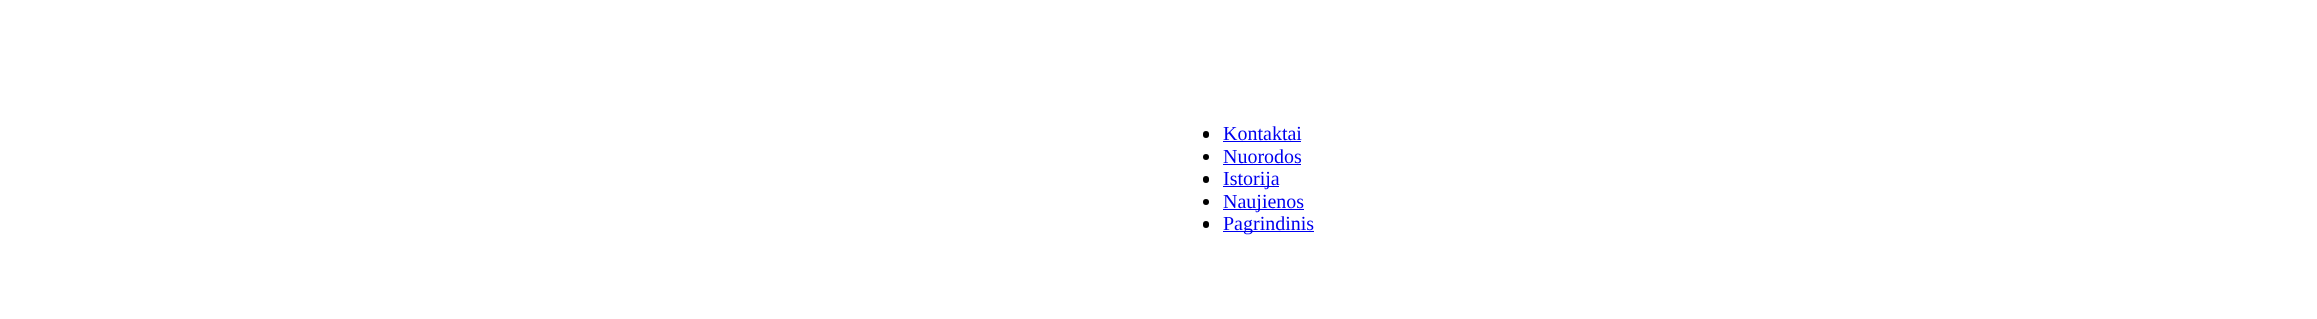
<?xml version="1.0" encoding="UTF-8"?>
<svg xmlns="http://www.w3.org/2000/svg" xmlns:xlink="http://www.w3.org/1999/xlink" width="2317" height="319">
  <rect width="100%" height="100%" fill="#ffffff" />
  <rect x="1203" y="131" width="6" height="7" rx="3" fill="#000000" />
  <rect x="1223" y="141" width="78" height="1" fill="#0000ee" />
  <circle cx="1206" cy="157" r="3" fill="#000000" />
  <rect x="1223" y="164" width="78" height="1" fill="#0000ee" />
  <rect x="1203" y="176" width="6" height="7" rx="3" fill="#000000" />
  <rect x="1223" y="186" width="56" height="1" fill="#0000ee" />
  <circle cx="1206" cy="202" r="3" fill="#000000" />
  <rect x="1223" y="209" width="81" height="1" fill="#0000ee" />
  <rect x="1203" y="221" width="6" height="7" rx="3" fill="#000000" />
  <rect x="1223" y="231" width="91" height="1" fill="#0000ee" />
  <text x="1223" y="140" style="font-family: Liberation Serif; font-size: 20px; fill: #0000ee">Kontaktai</text>
  <text x="1223" y="163" style="font-family: Liberation Serif; font-size: 20px; fill: #0000ee">Nuorodos</text>
  <text x="1223" y="185" style="font-family: Liberation Serif; font-size: 20px; fill: #0000ee">Istorija</text>
  <text x="1223" y="208" style="font-family: Liberation Serif; font-size: 20px; fill: #0000ee">Naujienos</text>
  <text x="1223" y="230" style="font-family: Liberation Serif; font-size: 20px; fill: #0000ee">Pagrindinis</text>
</svg>
